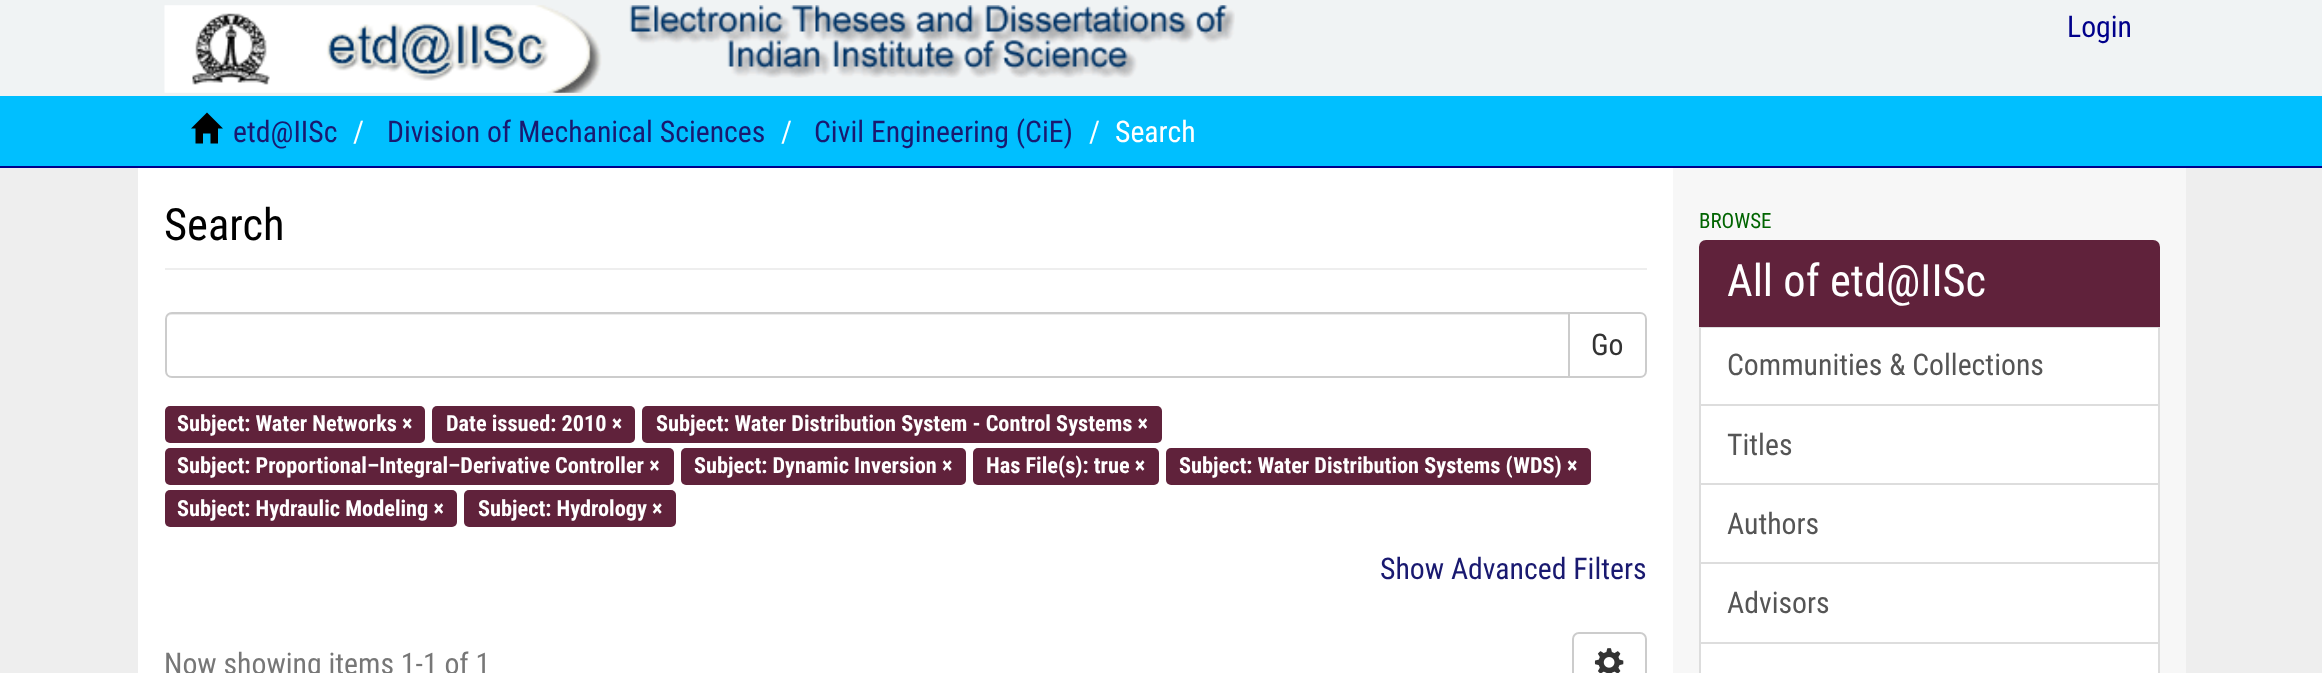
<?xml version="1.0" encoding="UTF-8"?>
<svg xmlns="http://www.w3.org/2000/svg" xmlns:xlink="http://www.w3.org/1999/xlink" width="2322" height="673">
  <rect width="100%" height="100%" fill="#eeeeee" />
  <rect width="2322" height="96" fill="#f0f3f4" />
  <image x="164" y="5" width="438" height="88" xlink:href="image1.png" />
  <image x="629" y="5" width="606" height="73" xlink:href="image2.png" />
  <rect y="96" width="2322" height="70" fill="#00bfff" />
  <rect y="166" width="2322" height="2" fill="#00008b" />
  <path d="M 191 128.5 l 16 -16 l 16 16 h -5 v 15 h -7.5 v -10 h -7.5 v 10 h -7.5 v -15 z" fill="#000000" />
  <rect x="1673" y="168" width="513" height="505" fill="#f7f7f7" />
  <rect x="138" y="168" width="1535" height="505" fill="#ffffff" />
  <rect x="165" y="268" width="1482" height="2" fill="#eeeeee" />
  <path d="M 1569 313 h 71 c 3.5 0 6 2.5 6 6 v 52 c 0 3.5 -2.5 6 -6 6 h -71 z" fill="none" stroke="#cccccc" stroke-width="2" />
  <path d="M 172 312 h 1398 v 66 h -1398 c -4 0 -7 -3 -7 -7 v -52 c 0 -4 3 -7 7 -7 z" fill="#ffffff" />
  <path d="M 172 315 h 1396 v -2 h -1397 c -4 0 -5 4 -5 7 c 0 -3 3 -5 6 -5 z" fill="#ececec" />
  <path d="M 172 313 h 1397 v 64 h -1397 c -3.5 0 -6 -2.5 -6 -6 v -52 c 0 -3.5 2.5 -6 6 -6 z" fill="none" stroke="#cccccc" stroke-width="2" />
  <rect x="165" y="406" width="260" height="37" rx="5" fill="#60223b" />
  <rect x="432" y="406" width="203" height="37" rx="5" fill="#60223b" />
  <rect x="642" y="406" width="520" height="37" rx="5" fill="#60223b" />
  <rect x="165" y="448" width="509" height="37" rx="5" fill="#60223b" />
  <rect x="681" y="448" width="285" height="37" rx="5" fill="#60223b" />
  <rect x="973" y="448" width="186" height="37" rx="5" fill="#60223b" />
  <rect x="1166" y="448" width="425" height="37" rx="5" fill="#60223b" />
  <rect x="165" y="490" width="292" height="37" rx="5" fill="#60223b" />
  <rect x="464" y="490" width="212" height="37" rx="5" fill="#60223b" />
  <rect x="1573" y="633" width="73" height="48" rx="6" fill="none" stroke="#cccccc" stroke-width="2" />
  <image x="1594" y="648" width="30" height="25" xlink:href="image3.png" />
  <rect x="1700" y="327" width="459" height="78" fill="#ffffff" stroke="#dddddd" stroke-width="2" />
  <path d="M 1706 241 h 447 c 3.5 0 6 2.5 6 6 v 79 h -459 v -79 c 0 -3.5 2.5 -6 6 -6 z" fill="#60223b" stroke="#60223b" stroke-width="2" />
  <rect x="1700" y="405" width="459" height="79" fill="#ffffff" stroke="#dddddd" stroke-width="2" />
  <rect x="1700" y="484" width="459" height="79" fill="#ffffff" stroke="#dddddd" stroke-width="2" />
  <rect x="1700" y="563" width="459" height="80" fill="#ffffff" stroke="#dddddd" stroke-width="2" />
  <rect x="1700" y="643" width="459" height="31" fill="#ffffff" stroke="#dddddd" stroke-width="2" />
  <text x="2067" y="37" style="font-family: Roboto Condensed; font-size: 29.75px; fill: #00008b">Login</text>
  <text x="233" y="142" style="font-family: Roboto Condensed; font-size: 29.75px; fill: #191970">etd@IISc</text>
  <text x="353" y="142" style="font-family: Roboto Condensed; font-size: 29.75px; fill: #ffffff">/</text>
  <text x="387" y="142" style="font-family: Roboto Condensed; font-size: 29.75px; fill: #191970">Division of Mechanical Sciences</text>
  <text x="781" y="142" style="font-family: Roboto Condensed; font-size: 29.75px; fill: #ffffff">/</text>
  <text x="814" y="142" style="font-family: Roboto Condensed; font-size: 29.75px; fill: #191970">Civil Engineering (CiE)</text>
  <text x="1089" y="142" style="font-family: Roboto Condensed; font-size: 29.75px; fill: #ffffff">/</text>
  <text x="1115" y="142" style="font-family: Roboto Condensed; font-size: 29.75px; fill: #ffffff">Search</text>
  <text x="164" y="240" style="font-family: Roboto Condensed; font-size: 44.5px; fill: #000000">Search</text>
  <text x="1591" y="355" style="font-family: Roboto Condensed; font-size: 29.75px; fill: #333333">Go</text>
  <text x="177" y="431" style="font-family: Roboto Condensed; font-size: 22.3px; font-weight: bold; fill: #ffffff">Subject: Water Networks ×</text>
  <text x="446" y="431" style="font-family: Roboto Condensed; font-size: 22.3px; font-weight: bold; fill: #ffffff">Date issued: 2010 ×</text>
  <text x="656" y="431" style="font-family: Roboto Condensed; font-size: 22.3px; font-weight: bold; fill: #ffffff">Subject: Water Distribution System - Control Systems ×</text>
  <text x="177" y="473" style="font-family: Roboto Condensed; font-size: 22.3px; font-weight: bold; fill: #ffffff">Subject: Proportional–Integral–Derivative Controller ×</text>
  <text x="694" y="473" style="font-family: Roboto Condensed; font-size: 22.3px; font-weight: bold; fill: #ffffff">Subject: Dynamic Inversion ×</text>
  <text x="986" y="473" style="font-family: Roboto Condensed; font-size: 22.3px; font-weight: bold; fill: #ffffff">Has File(s): true ×</text>
  <text x="1179" y="473" style="font-family: Roboto Condensed; font-size: 22.3px; font-weight: bold; fill: #ffffff">Subject: Water Distribution Systems (WDS) ×</text>
  <text x="177" y="516" style="font-family: Roboto Condensed; font-size: 22.3px; font-weight: bold; fill: #ffffff">Subject: Hydraulic Modeling ×</text>
  <text x="478" y="516" style="font-family: Roboto Condensed; font-size: 22.3px; font-weight: bold; fill: #ffffff">Subject: Hydrology ×</text>
  <text x="1380" y="579" style="font-family: Roboto Condensed; font-size: 29.75px; fill: #191970">Show Advanced Filters</text>
  <text x="164" y="674" style="font-family: Roboto Condensed; font-size: 29.75px; fill: #777777">Now showing items 1-1 of 1</text>
  <text x="1699" y="228" style="font-family: Roboto Condensed; font-size: 21px; fill: #006400">BROWSE</text>
  <text x="1727" y="296" style="font-family: Roboto Condensed; font-size: 44.5px; fill: #ffffff">All of etd@IISc</text>
  <text x="1727" y="375" style="font-family: Roboto Condensed; font-size: 29.75px; fill: #555555">Communities &amp; Collections</text>
  <text x="1727" y="455" style="font-family: Roboto Condensed; font-size: 29.75px; fill: #555555">Titles</text>
  <text x="1727" y="534" style="font-family: Roboto Condensed; font-size: 29.75px; fill: #555555">Authors</text>
  <text x="1727" y="613" style="font-family: Roboto Condensed; font-size: 29.75px; fill: #555555">Advisors</text>
</svg>
